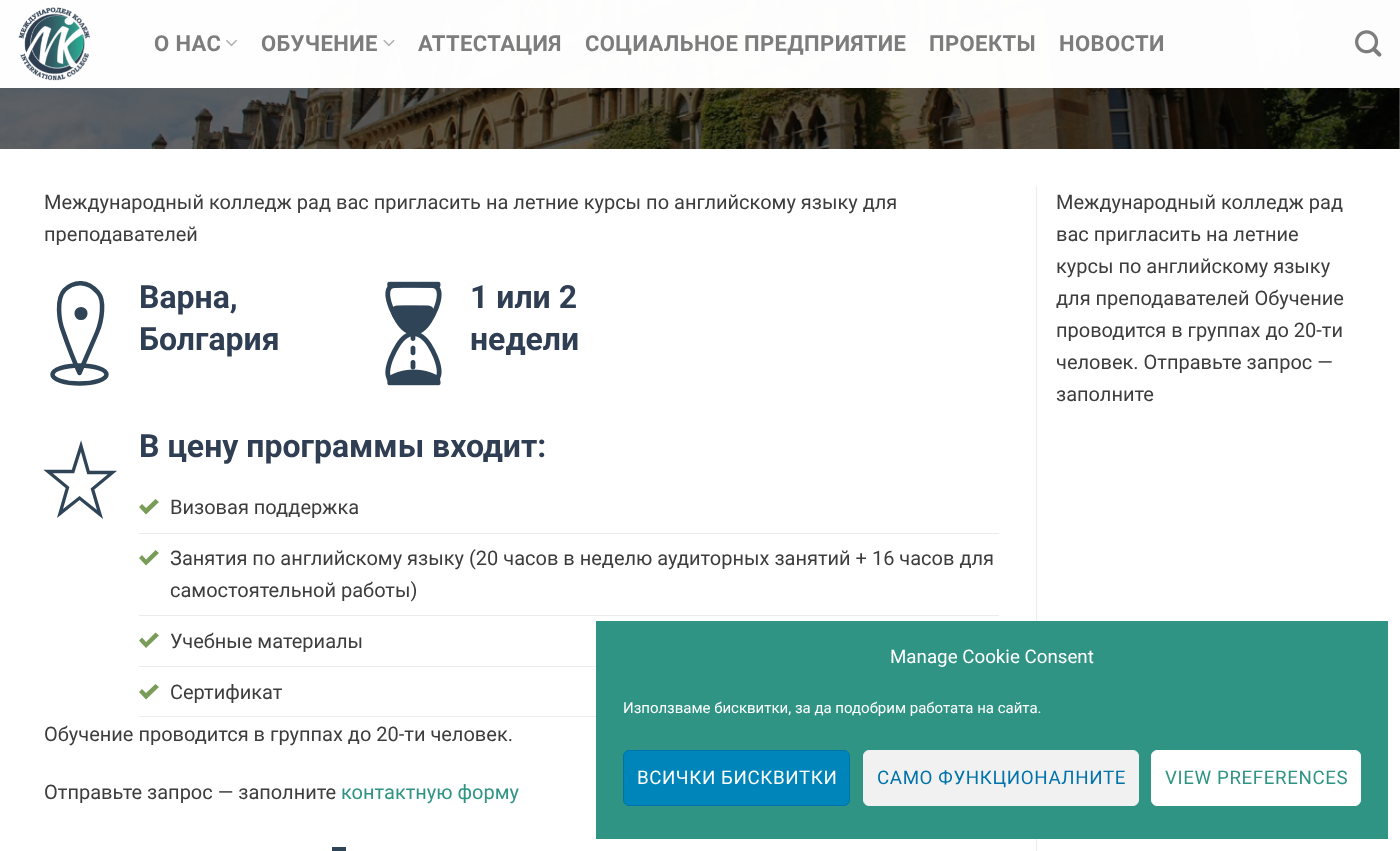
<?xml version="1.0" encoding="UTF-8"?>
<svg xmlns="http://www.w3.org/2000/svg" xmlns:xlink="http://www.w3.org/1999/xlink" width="1400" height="851">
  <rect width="100%" height="100%" fill="#ffffff" />
  <image x="0" y="0" width="1400" height="149" xlink:href="image5.png" />
  <rect width="1400" height="88" fill="#ffffff" fill-opacity="0.9" />
  <rect width="1400" height="88" fill="#ffffff" fill-opacity="0.9" />
  <image x="18" y="7" width="72" height="74" xlink:href="image1.png" />
  <image x="226" y="39" width="11" height="8" xlink:href="image2.png" />
  <image x="383" y="39" width="12" height="8" xlink:href="image3.png" />
  <image x="1355" y="30" width="27" height="27" xlink:href="image4.png" />
  <rect x="1036" y="186" width="1" height="665" fill="#ececec" />
  <circle cx="81" cy="313.5" r="3.5" fill="#2f4557" stroke="#2f4557" stroke-width="6.1" />
  <path d="M 79.5 373 c -6 -13 -11.5 -27.5 -16.5 -42 c -4 -10.5 -7 -32 1.5 -41 c 9.5 -9.5 23.5 -9.5 33.5 2.5 c 7 8 4 28 -1 40 l -17.5 40.5" fill="none" stroke="#2f4557" stroke-width="4.5" stroke-linecap="round" stroke-linejoin="round" />
  <ellipse cx="79.5" cy="374.5" rx="27" ry="9" fill="none" stroke="#2f4557" stroke-width="4.5" />
  <image x="385" y="281" width="57" height="105" xlink:href="image6.png" />
  <path d="M 100 514.5 l -20.5 -16.5 l -19.5 15.5 l 7.5 -26 l -19.5 -16 h 25 l 8 -25.5 l 7.5 26.5 h 24 l -20 16.5 z" fill="none" stroke="#2f4557" stroke-width="3.3" />
  <rect x="139" y="533" width="860" height="1" fill="#ececec" />
  <path d="M 155.5 499 l -9.5 9 l -4 -4 l -3 3 l 7 7.5 l 13 -12.5 z" fill="#7a9c59" />
  <rect x="139" y="615" width="860" height="1" fill="#ececec" />
  <path d="M 155.5 550 l -9.5 9.5 l -4 -4.5 l -3 3 l 7 7.5 l 13 -12.5 z" fill="#7a9c59" />
  <rect x="139" y="666" width="457" height="1" fill="#ececec" />
  <path d="M 155.5 632.5 l -9.5 9.5 l -4 -4.5 l -3 3 l 7 7.5 l 13 -12.5 z" fill="#7a9c59" />
  <rect x="139" y="716" width="457" height="1" fill="#ececec" />
  <path d="M 155.5 684 l -9.5 9 l -4 -4 l -3 3 l 7 7.5 l 13 -12.5 z" fill="#7a9c59" />
  <rect x="332" y="847" width="14" height="4" fill="#2f4557" />
  <rect x="596" y="621" width="792" height="218" fill="#309485" />
  <rect x="623.5" y="750.5" width="226" height="55" rx="5.5" fill="#0085ba" stroke="#0073aa" />
  <rect x="863.5" y="750.5" width="275" height="55" rx="5.5" fill="#f1f1f1" stroke="#f1f1f1" />
  <rect x="1151.5" y="750.5" width="209" height="55" rx="5.5" fill="#ffffff" stroke="#ffffff" />
  <text x="154" y="51" style="font-family: Roboto; font-size: 22px; font-weight: bold; letter-spacing: 0.4px; fill: #7d7d7d">О НАС</text>
  <text x="261" y="51" style="font-family: Roboto; font-size: 22px; font-weight: bold; letter-spacing: 0.4px; fill: #7d7d7d">ОБУЧЕНИЕ</text>
  <text x="418" y="51" style="font-family: Roboto; font-size: 22px; font-weight: bold; letter-spacing: 0.4px; fill: #7d7d7d">АТТЕСТАЦИЯ</text>
  <text x="585" y="51" style="font-family: Roboto; font-size: 22px; font-weight: bold; letter-spacing: 0.4px; fill: #7d7d7d">СОЦИАЛЬНОЕ ПРЕДПРИЯТИЕ</text>
  <text x="929" y="51" style="font-family: Roboto; font-size: 22px; font-weight: bold; letter-spacing: 0.4px; fill: #7d7d7d">ПРОЕКТЫ</text>
  <text x="1059" y="51" style="font-family: Roboto; font-size: 22px; font-weight: bold; letter-spacing: 0.4px; fill: #7d7d7d">НОВОСТИ</text>
  <text x="44" y="209" style="font-family: Roboto; font-size: 20px; fill: #3d3d3d">Международный колледж рад вас пригласить на летние курсы по английскому языку для</text>
  <text x="44" y="241" style="font-family: Roboto; font-size: 20px; fill: #3d3d3d">преподавателей</text>
  <text x="139" y="308" style="font-family: Roboto; font-size: 32px; font-weight: bold; fill: #2f3e52">Варна,</text>
  <text x="139" y="350" style="font-family: Roboto; font-size: 32px; font-weight: bold; fill: #2f3e52">Болгария</text>
  <text x="470" y="308" style="font-family: Roboto; font-size: 32px; font-weight: bold; fill: #2f3e52">1 или 2</text>
  <text x="470" y="350" style="font-family: Roboto; font-size: 32px; font-weight: bold; fill: #2f3e52">недели</text>
  <text x="139" y="457" style="font-family: Roboto; font-size: 32px; font-weight: bold; fill: #2f3e52">В цену программы входит:</text>
  <text x="170" y="514" style="font-family: Roboto; font-size: 20px; fill: #3d3d3d">Визовая поддержка</text>
  <text x="170" y="565" style="font-family: Roboto; font-size: 20px; fill: #3d3d3d">Занятия по английскому языку (20 часов в неделю аудиторных занятий + 16 часов для</text>
  <text x="170" y="597" style="font-family: Roboto; font-size: 20px; fill: #3d3d3d">самостоятельной работы)</text>
  <text x="170" y="648" style="font-family: Roboto; font-size: 20px; fill: #3d3d3d">Учебные материалы</text>
  <text x="170" y="699" style="font-family: Roboto; font-size: 20px; fill: #3d3d3d">Сертификат</text>
  <text x="44" y="741" style="font-family: Roboto; font-size: 20px; fill: #3d3d3d">Обучение проводится в группах до 20-ти человек.</text>
  <text x="44" y="799" style="font-family: Roboto; font-size: 20px; fill: #3d3d3d">Отправьте запрос — заполните</text>
  <text x="341" y="799" style="font-family: Roboto; font-size: 20px; fill: #309485">контактную форму</text>
  <text x="1056" y="209" style="font-family: Roboto; font-size: 20px; fill: #3d3d3d">Международный колледж рад</text>
  <text x="1056" y="241" style="font-family: Roboto; font-size: 20px; fill: #3d3d3d">вас пригласить на летние</text>
  <text x="1056" y="273" style="font-family: Roboto; font-size: 20px; fill: #3d3d3d">курсы по английскому языку</text>
  <text x="1056" y="305" style="font-family: Roboto; font-size: 20px; fill: #3d3d3d">для преподавателей Обучение</text>
  <text x="1056" y="337" style="font-family: Roboto; font-size: 20px; fill: #3d3d3d">проводится в группах до 20-ти</text>
  <text x="1056" y="369" style="font-family: Roboto; font-size: 20px; fill: #3d3d3d">человек. Отправьте запрос —</text>
  <text x="1056" y="401" style="font-family: Roboto; font-size: 20px; fill: #3d3d3d">заполните</text>
  <text x="890" y="663" style="font-family: Roboto; font-size: 18.75px; fill: #ffffff">Manage Cookie Consent</text>
  <text x="623" y="713" style="font-family: Roboto; font-size: 15px; fill: #ffffff">Използваме бисквитки, за да подобрим работата на сайта.</text>
  <text x="637" y="784" style="font-family: Roboto; font-size: 18.75px; letter-spacing: 0.6px; fill: #ffffff">ВСИЧКИ БИСКВИТКИ</text>
  <text x="877" y="784" style="font-family: Roboto; font-size: 18.75px; letter-spacing: 0.6px; fill: #0073aa">САМО ФУНКЦИОНАЛНИТЕ</text>
  <text x="1165" y="784" style="font-family: Roboto; font-size: 18.75px; letter-spacing: 0.6px; fill: #309485">VIEW PREFERENCES</text>
</svg>
